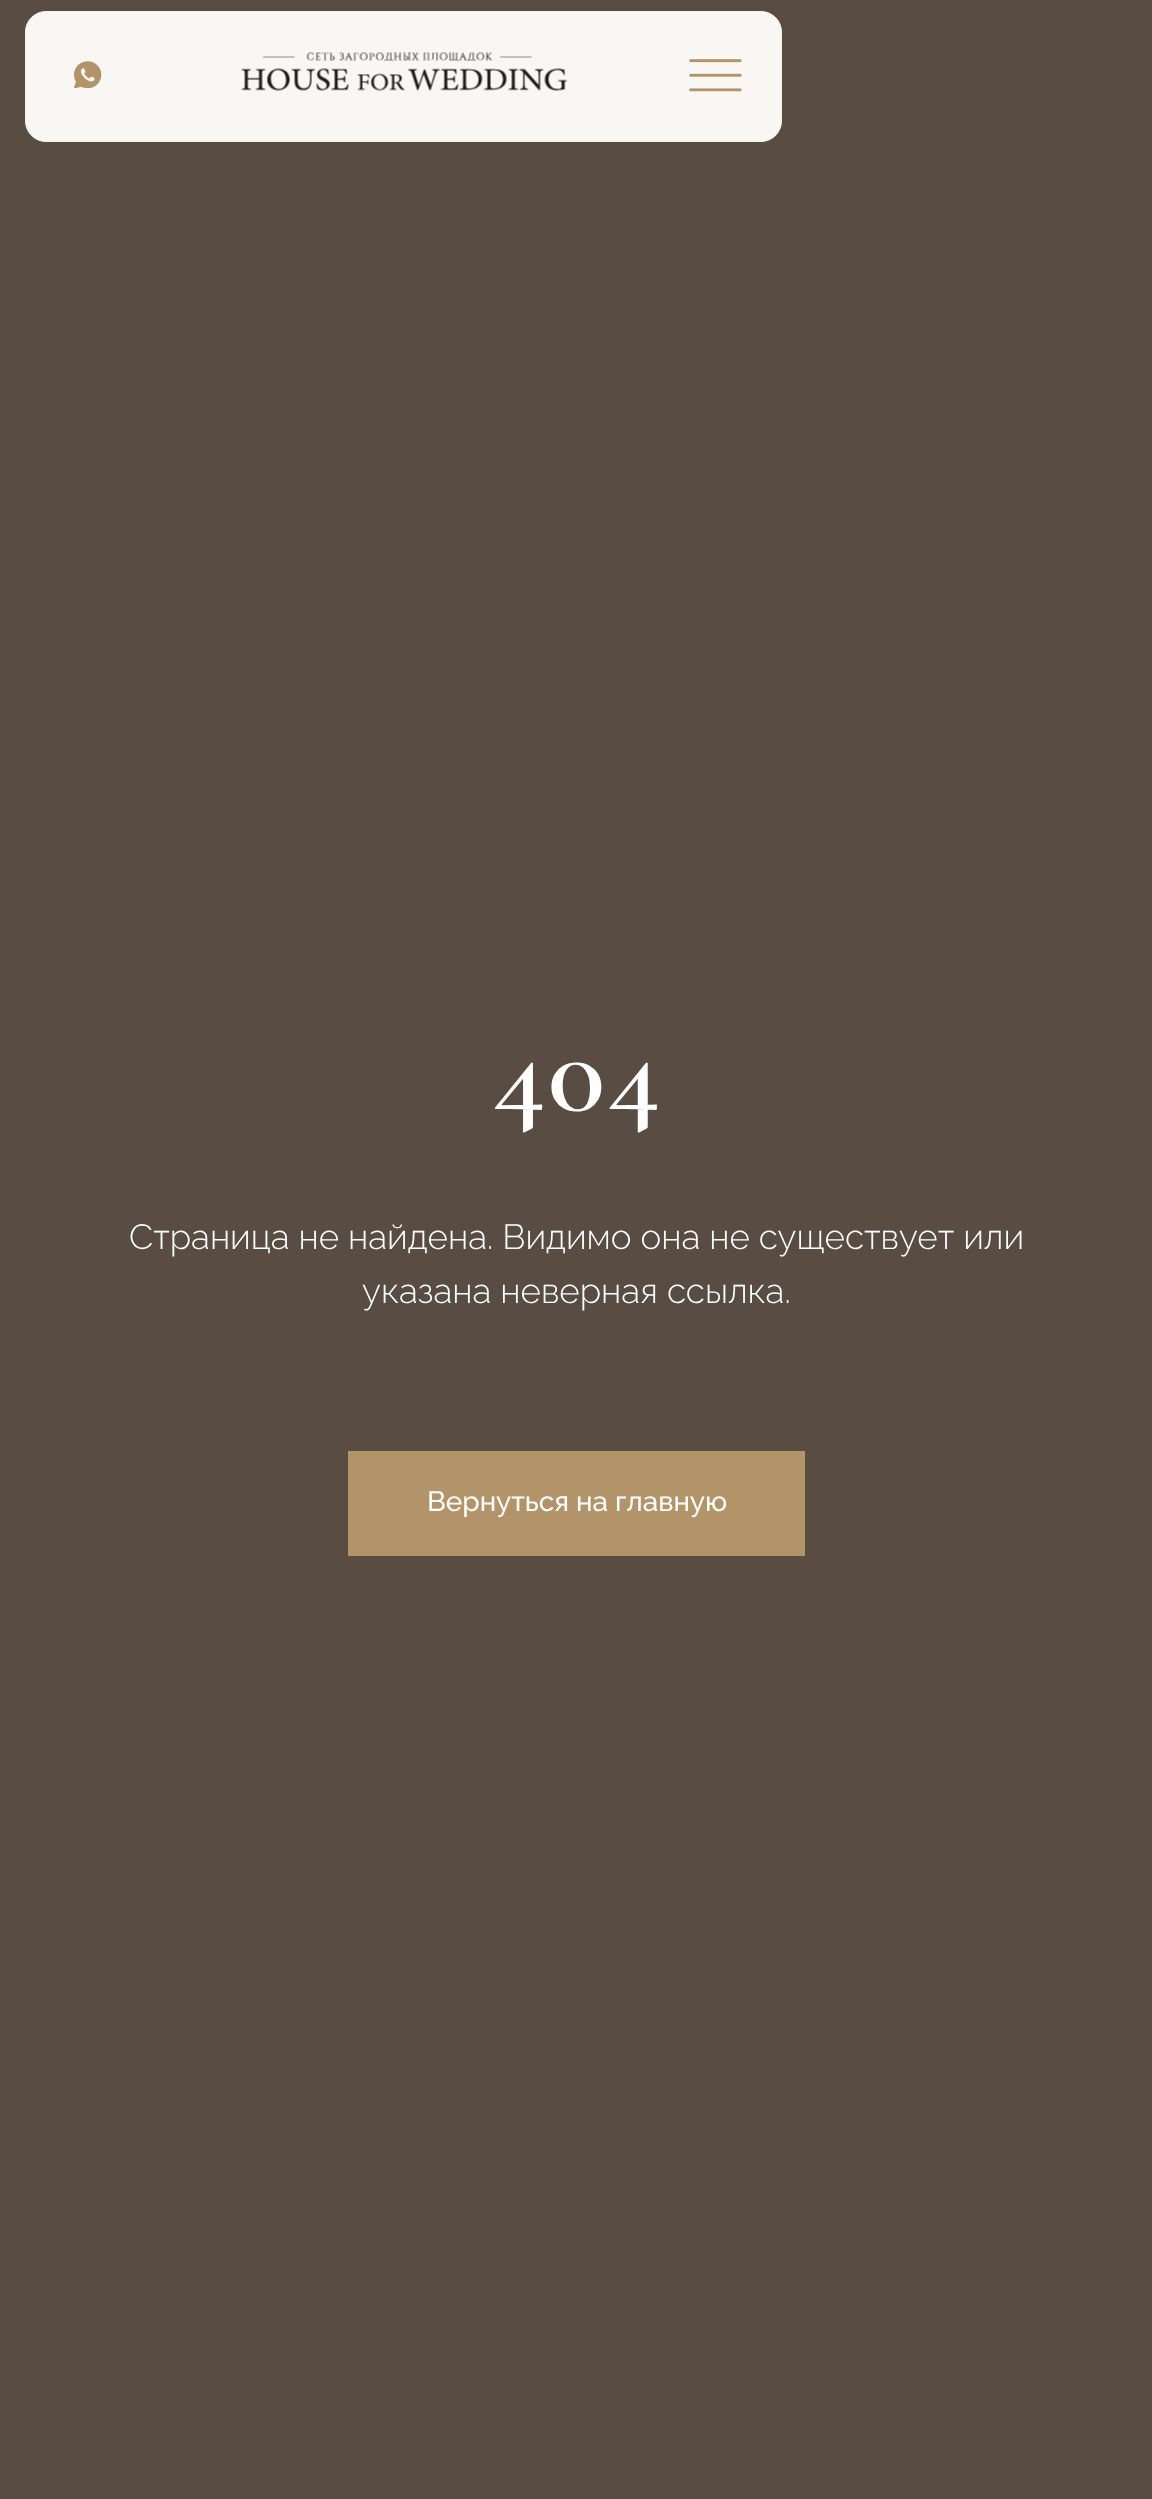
<?xml version="1.0" encoding="UTF-8"?>
<svg xmlns="http://www.w3.org/2000/svg" xmlns:xlink="http://www.w3.org/1999/xlink" width="1152" height="2499">
  <rect width="100%" height="100%" fill="#594c42" />
  <rect x="25.5" y="11.5" width="756" height="130" rx="20.5" fill="#f9f7f4" stroke="#f5f2ed" />
  <image x="74" y="61" width="28" height="27" xlink:href="image1.png" />
  <image x="241" y="52" width="327" height="39" xlink:href="image2.png" />
  <image x="689" y="59" width="53" height="33" xlink:href="image3.png" />
  <rect x="348" y="1451" width="457" height="105" fill="#b39469" />
  <text x="492" y="1110" style="font-family: Cormorant; font-size: 119px; font-weight: 600; letter-spacing: 2px; fill: #fefefe">404</text>
  <text x="129" y="1249" style="font-family: Raleway; font-size: 35px; font-weight: 300; fill: #fefefe">Страница не найдена. Видимо она не существует или</text>
  <text x="362" y="1303" style="font-family: Raleway; font-size: 35px; font-weight: 300; fill: #fefefe">указана неверная ссылка.</text>
  <text x="427" y="1511" style="font-family: Raleway; font-size: 28px; font-weight: 500; fill: #fefefe">Вернуться на главную</text>
</svg>
